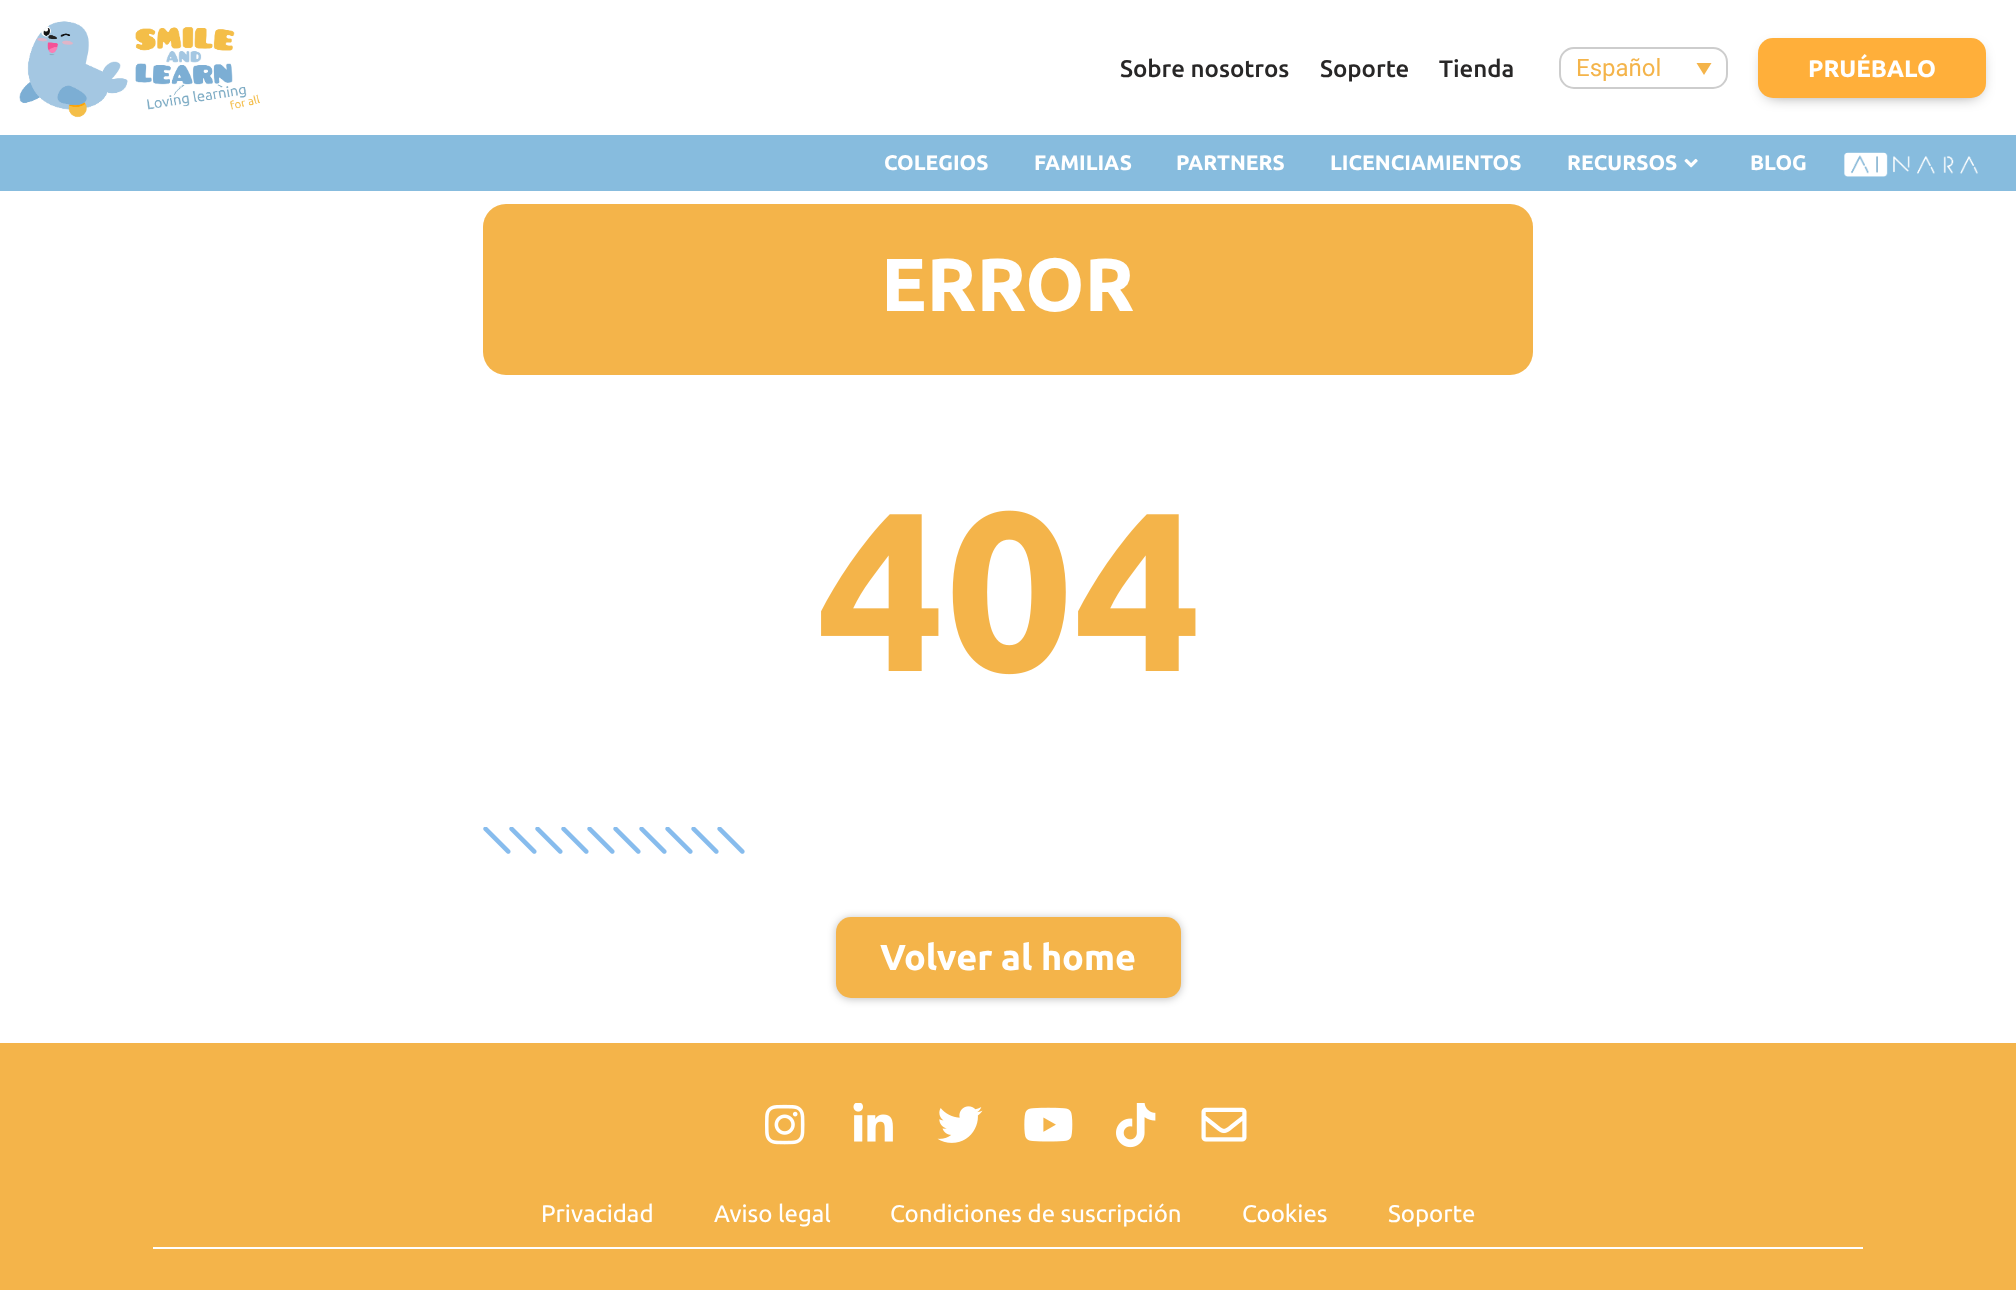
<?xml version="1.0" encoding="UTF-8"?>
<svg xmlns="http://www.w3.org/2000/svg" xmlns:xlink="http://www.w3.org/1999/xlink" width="2016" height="1290">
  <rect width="100%" height="100%" fill="#ffffff" />
  <image x="19" y="21" width="241" height="97" xlink:href="image1.png" />
  <rect x="1560" y="48" width="167" height="40" rx="14" fill="none" stroke="#cdcdcd" stroke-width="2" />
  <path d="M 1696.5 63 h 15 l -7.5 12 z" fill="#f4b44a" />
  <rect x="1766" y="50" width="213" height="45" rx="8" fill="#000000" fill-opacity="0.5" filter="blur(7.5px)" />
  <rect x="1758" y="38" width="228" height="60" rx="15" fill="#ffaf3a" />
  <rect y="135" width="2016" height="56" fill="#87bcde" />
  <image x="1684" y="158" width="14" height="10" xlink:href="image2.png" />
  <image x="1844" y="152" width="134" height="25" xlink:href="image3.png" />
  <rect x="483" y="204" width="1050" height="171" rx="23" fill="#f4b44a" />
  <image x="821" y="510" width="375" height="165" xlink:href="image4.png" />
  <image x="483" y="827" width="262" height="27" xlink:href="image5.png" />
  <rect x="836" y="918" width="345" height="81" rx="15" fill="#000000" fill-opacity="0.25" filter="blur(4px)" />
  <rect x="836" y="917" width="345" height="81" rx="15" fill="#f4b44a" />
  <rect y="1043" width="2016" height="247" fill="#f4b44a" />
  <image x="765" y="1104" width="40" height="41" xlink:href="image6.png" />
  <image x="853" y="1103" width="40" height="39" xlink:href="image7.png" />
  <image x="937" y="1106" width="46" height="37" xlink:href="image8.png" />
  <image x="1024" y="1107" width="49" height="35" xlink:href="image9.png" />
  <image x="1116" y="1103" width="40" height="45" xlink:href="image10.png" />
  <image x="1201" y="1107" width="46" height="35" xlink:href="image11.png" />
  <rect x="153" y="1247" width="1710" height="2" fill="#ffffff" />
  <text x="1120" y="77" style="font-family: Ubuntu; font-size: 24px; font-weight: 500; fill: #282727">Sobre nosotros</text>
  <text x="1320" y="77" style="font-family: Ubuntu; font-size: 24px; font-weight: 500; fill: #282727">Soporte</text>
  <text x="1439" y="77" style="font-family: Ubuntu; font-size: 24px; font-weight: 500; fill: #282727">Tienda</text>
  <text x="1576" y="76" style="font-family: Roboto; font-size: 24px; fill: #f4b44a">Español</text>
  <text x="1808" y="77" style="font-family: Ubuntu; font-size: 24px; font-weight: bold; fill: #ffffff">PRUÉBALO</text>
  <text x="884" y="170" style="font-family: Ubuntu; font-size: 21px; font-weight: bold; fill: #ffffff">COLEGIOS</text>
  <text x="1034" y="170" style="font-family: Ubuntu; font-size: 21px; font-weight: bold; fill: #ffffff">FAMILIAS</text>
  <text x="1176" y="170" style="font-family: Ubuntu; font-size: 21px; font-weight: bold; fill: #ffffff">PARTNERS</text>
  <text x="1330" y="170" style="font-family: Ubuntu; font-size: 21px; font-weight: bold; fill: #ffffff">LICENCIAMIENTOS</text>
  <text x="1567" y="170" style="font-family: Ubuntu; font-size: 21px; font-weight: bold; fill: #ffffff">RECURSOS</text>
  <text x="1750" y="170" style="font-family: Ubuntu; font-size: 21px; font-weight: bold; fill: #ffffff">BLOG</text>
  <text x="881" y="311" style="font-family: Ubuntu; font-size: 75px; font-weight: bold; fill: #ffffff">ERROR</text>
  <text x="880" y="970" style="font-family: Ubuntu; font-size: 36px; font-weight: bold; fill: #ffffff">Volver al home</text>
  <text x="541" y="1222" style="font-family: Ubuntu; font-size: 24px; fill: #ffffff">Privacidad</text>
  <text x="714" y="1222" style="font-family: Ubuntu; font-size: 24px; fill: #ffffff">Aviso legal</text>
  <text x="890" y="1222" style="font-family: Ubuntu; font-size: 24px; fill: #ffffff">Condiciones de suscripción</text>
  <text x="1242" y="1222" style="font-family: Ubuntu; font-size: 24px; fill: #ffffff">Cookies</text>
  <text x="1388" y="1222" style="font-family: Ubuntu; font-size: 24px; fill: #ffffff">Soporte</text>
</svg>
